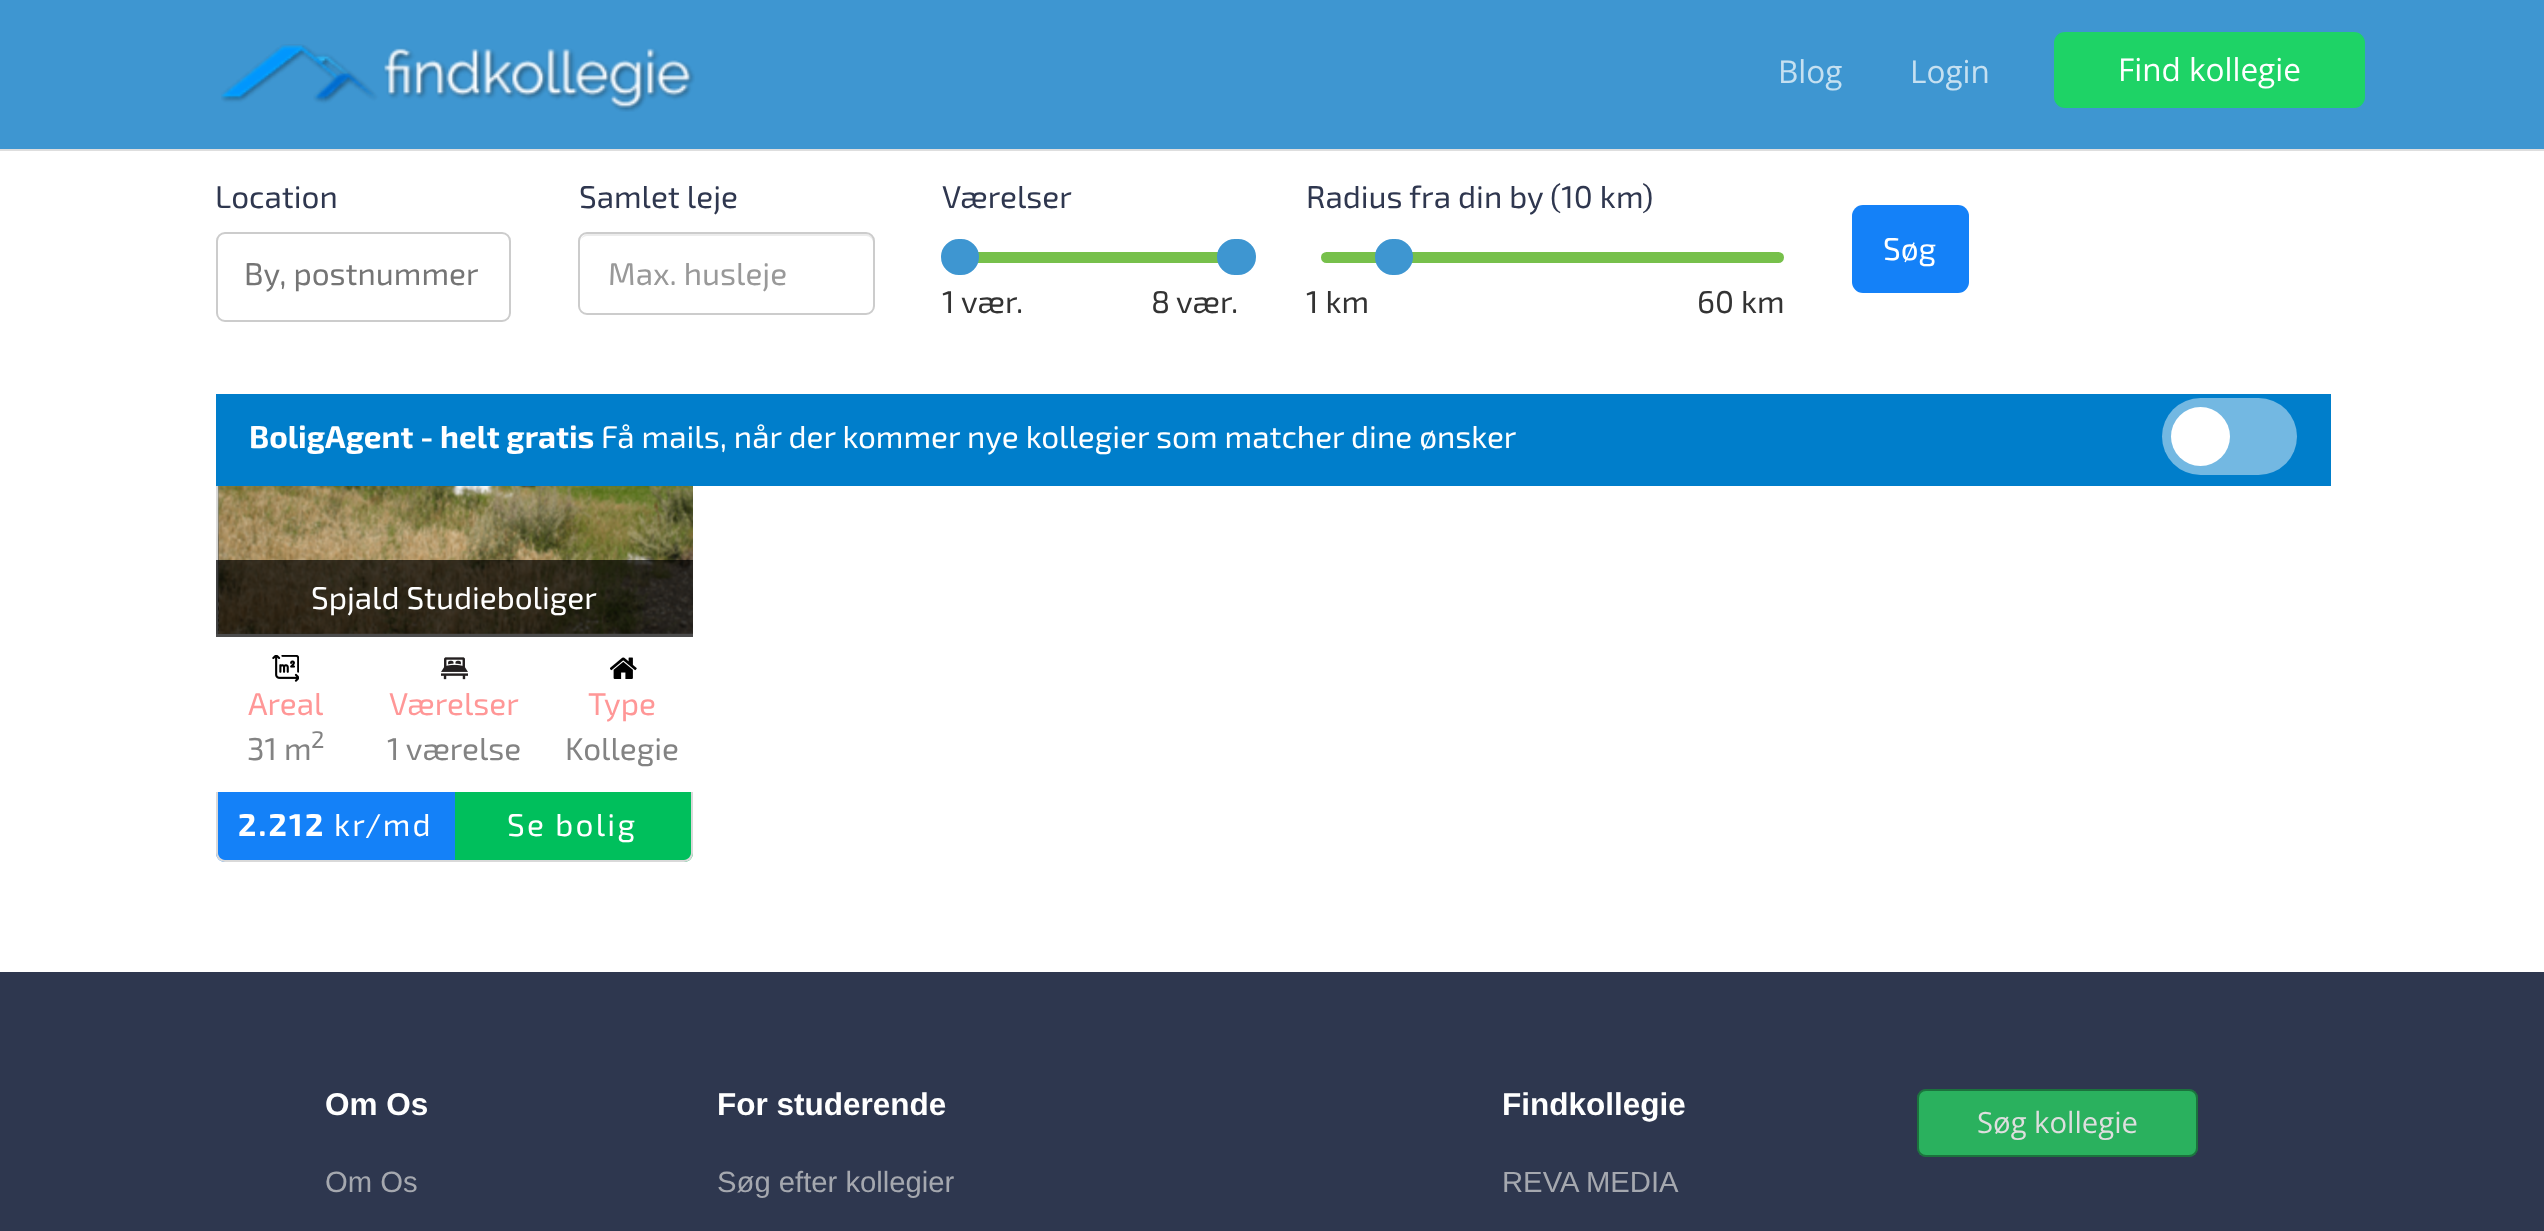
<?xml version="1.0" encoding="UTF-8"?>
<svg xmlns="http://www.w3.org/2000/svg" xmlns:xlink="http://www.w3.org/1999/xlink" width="2544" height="1231">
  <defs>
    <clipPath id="clip1"><rect x="216" y="207" width="477" height="428" /></clipPath>
  </defs>
  <rect width="100%" height="100%" fill="#ffffff" />
  <rect width="2544" height="149" fill="#3e96d1" />
  <rect y="149" width="2544" height="2" fill="#dedede" />
  <image x="221" y="44" width="474" height="68" xlink:href="image1.png" />
  <rect x="2054" y="32" width="311" height="76" rx="11" fill="#1ed366" />
  <image x="218" y="486" width="107" height="148" xlink:href="image3.png" />
  <g clip-path="url(#clip1)">
    <path d="M 223 207 h 576 c 3 0 7 3 7 7 v 420 h -590 v -420 c 0 -4 3 -7 7 -7 z m 0 2 h 576 c 2 0 4 2 4 5 v 420 h -585 v -420 c 0 -3 2 -5 5 -5 z" fill="#d9d9d9" fill-rule="evenodd" />
  </g>
  <rect x="216" y="207" width="477" height="187" fill="#ffffff" />
  <rect x="217" y="233" width="293" height="88" rx="8" fill="none" stroke="#cccccc" stroke-width="2" />
  <path d="M 587 236 h 279 c 4 0 7 3 7 7 v -2 c 0 -4 -3 -7 -7 -7 h -278 c -3 0 -6 2 -7 5 c 2 -2 4 -3 6 -3 z" fill="#ececec" />
  <rect x="579" y="233" width="295" height="81" rx="8" fill="none" stroke="#cccccc" stroke-width="2" />
  <rect x="978" y="254" width="240" height="7" fill="#77c04b" />
  <rect x="960" y="253" width="277" height="9" fill="none" stroke="#77c04b" stroke-width="2" />
  <rect x="942" y="240" width="36" height="34" rx="17" fill="#3e96d1" stroke="#3e96d1" stroke-width="2" />
  <rect x="1218" y="240" width="37" height="34" rx="17" fill="#3e96d1" stroke="#3e96d1" stroke-width="2" />
  <rect x="1322" y="253" width="461" height="9" rx="4.5" fill="#77c04b" stroke="#77c04b" stroke-width="2" />
  <rect x="1376" y="240" width="36" height="34" rx="17" fill="#3e96d1" stroke="#3e96d1" stroke-width="2" />
  <rect x="1852" y="205" width="117" height="88" rx="11" fill="#1481f8" />
  <rect x="216" y="394" width="2115" height="92" fill="#007ecb" />
  <rect x="2162" y="398" width="135" height="77" rx="38.5" fill="#73b8e2" />
  <circle cx="2200.5" cy="436.5" r="29.5" fill="#ffffff" />
  <image x="217" y="486" width="476" height="148" xlink:href="image2.png" />
  <rect x="216" y="560" width="477" height="77" fill="#000000" fill-opacity="0.7" />
  <image x="272" y="655" width="27" height="27" xlink:href="image4.png" />
  <image x="441" y="657" width="27" height="23" xlink:href="image5.png" />
  <image x="610" y="657" width="27" height="22" xlink:href="image6.png" />
  <path d="M 216 792 h 239 v 70 h -230 c -5 0 -9 -4 -9 -9 z" fill="#1481f8" />
  <path d="M 216 792 h 238 v 70 h -229 c -5 0 -9 -4 -9 -9 z m 2 0 h 236 v 68 h -229 c -4 0 -7 -4 -7 -7 z" fill="#d9d9d9" fill-rule="evenodd" />
  <path d="M 455 792 h 238 v 61 c 0 5 -4 9 -9 9 h -229 z" fill="#00bf5c" />
  <path d="M 454 792 h 239 v 61 c 0 5 -4 9 -9 9 h -230 z m 0 0 h 237 v 61 c 0 3 -3 7 -7 7 h -230 z" fill="#d9d9d9" fill-rule="evenodd" />
  <rect y="972" width="2544" height="259" fill="#2e374f" />
  <rect x="1917" y="1089" width="281" height="68" rx="9" fill="#2ab15e" />
  <rect x="1918" y="1090" width="279" height="66" rx="8" fill="none" stroke="#000000" stroke-opacity="0.35" stroke-width="2" />
  <text x="1778" y="83" style="font-family: Open Sans; font-size: 31.5px; fill: #c5e0f1">Blog</text>
  <text x="1910" y="83" style="font-family: Open Sans; font-size: 31.5px; fill: #c5e0f1">Login</text>
  <text x="2118" y="81" style="font-family: Open Sans; font-size: 31.5px; fill: #ffffff">Find kollegie</text>
  <text x="215" y="208" style="font-family: 'Exo 2'; font-size: 31.5px; fill: #2f374f">Location</text>
  <text x="244" y="285" style="font-family: 'Exo 2'; font-size: 31.5px; fill: #757575">By, postnummer</text>
  <text x="579" y="208" style="font-family: 'Exo 2'; font-size: 31.5px; fill: #2f374f">Samlet leje</text>
  <text x="608" y="285" style="font-family: 'Exo 2'; font-size: 31.5px; fill: #999999">Max. husleje</text>
  <text x="942" y="208" style="font-family: 'Exo 2'; font-size: 31.5px; fill: #2f374f">Værelser</text>
  <text x="942" y="313" style="font-family: 'Exo 2'; font-size: 31.5px; fill: #333333">1</text>
  <text x="961" y="313" style="font-family: 'Exo 2'; font-size: 31.5px; fill: #333333">vær.</text>
  <text x="1151" y="313" style="font-family: 'Exo 2'; font-size: 31.5px; fill: #333333">8</text>
  <text x="1176" y="313" style="font-family: 'Exo 2'; font-size: 31.5px; fill: #333333">vær.</text>
  <text x="1306" y="208" style="font-family: 'Exo 2'; font-size: 31.5px; fill: #2f374f">Radius fra din by (10 km)</text>
  <text x="1306" y="313" style="font-family: 'Exo 2'; font-size: 31.5px; fill: #333333">1 km</text>
  <text x="1697" y="313" style="font-family: 'Exo 2'; font-size: 31.5px; fill: #333333">60 km</text>
  <text x="1883" y="260" style="font-family: 'Exo 2'; font-size: 31.5px; fill: #ffffff">Søg</text>
  <text x="249" y="448" style="font-family: 'Exo 2'; font-size: 31.5px; font-weight: bold; fill: #ffffff">BoligAgent - helt gratis</text>
  <text x="601" y="448" style="font-family: 'Exo 2'; font-size: 31.5px; fill: #ffffff">Få mails, når der kommer nye kollegier som matcher dine ønsker</text>
  <text x="311" y="609" style="font-family: 'Exo 2'; font-size: 31.5px; fill: #ffffff">Spjald Studieboliger</text>
  <text x="248" y="715" style="font-family: 'Exo 2'; font-size: 31.5px; fill: #ff9797">Areal</text>
  <text x="247" y="760" style="font-family: 'Exo 2'; font-size: 31.5px; fill: #838383">31 m</text>
  <text x="311" y="748" style="font-family: 'Exo 2'; font-size: 24px; fill: #838383">2</text>
  <text x="389" y="715" style="font-family: 'Exo 2'; font-size: 31.5px; fill: #ff9797">Værelser</text>
  <text x="387" y="760" style="font-family: 'Exo 2'; font-size: 31.5px; fill: #838383">1 værelse</text>
  <text x="588" y="715" style="font-family: 'Exo 2'; font-size: 31.5px; fill: #ff9797">Type</text>
  <text x="565" y="760" style="font-family: 'Exo 2'; font-size: 31.5px; fill: #838383">Kollegie</text>
  <text x="238" y="836" style="font-family: 'Exo 2'; font-size: 31.5px; font-weight: bold; letter-spacing: 2.25px; fill: #ffffff">2.212</text>
  <text x="334" y="836" style="font-family: 'Exo 2'; font-size: 31.5px; letter-spacing: 2.25px; fill: #ffffff">kr/md</text>
  <text x="507" y="836" style="font-family: 'Exo 2'; font-size: 31.5px; letter-spacing: 2.25px; fill: #ffffff">Se bolig</text>
  <text x="325" y="1115" style="font-family: Liberation Sans; font-size: 31.5px; font-weight: bold; fill: #ffffff">Om Os</text>
  <text x="325" y="1192" style="font-family: Liberation Sans; font-size: 29.25px; fill: #a5a8af">Om Os</text>
  <text x="717" y="1115" style="font-family: Liberation Sans; font-size: 31.5px; font-weight: bold; fill: #ffffff">For studerende</text>
  <text x="717" y="1192" style="font-family: Liberation Sans; font-size: 29.25px; fill: #a5a8af">Søg efter kollegier</text>
  <text x="1502" y="1115" style="font-family: Liberation Sans; font-size: 31.5px; font-weight: bold; fill: #ffffff">Findkollegie</text>
  <text x="1502" y="1192" style="font-family: Liberation Sans; font-size: 29.25px; fill: #a5a8af">REVA MEDIA</text>
  <text x="1977" y="1133" style="font-family: Open Sans; font-size: 29.25px; fill: #dedede">Søg kollegie</text>
</svg>
